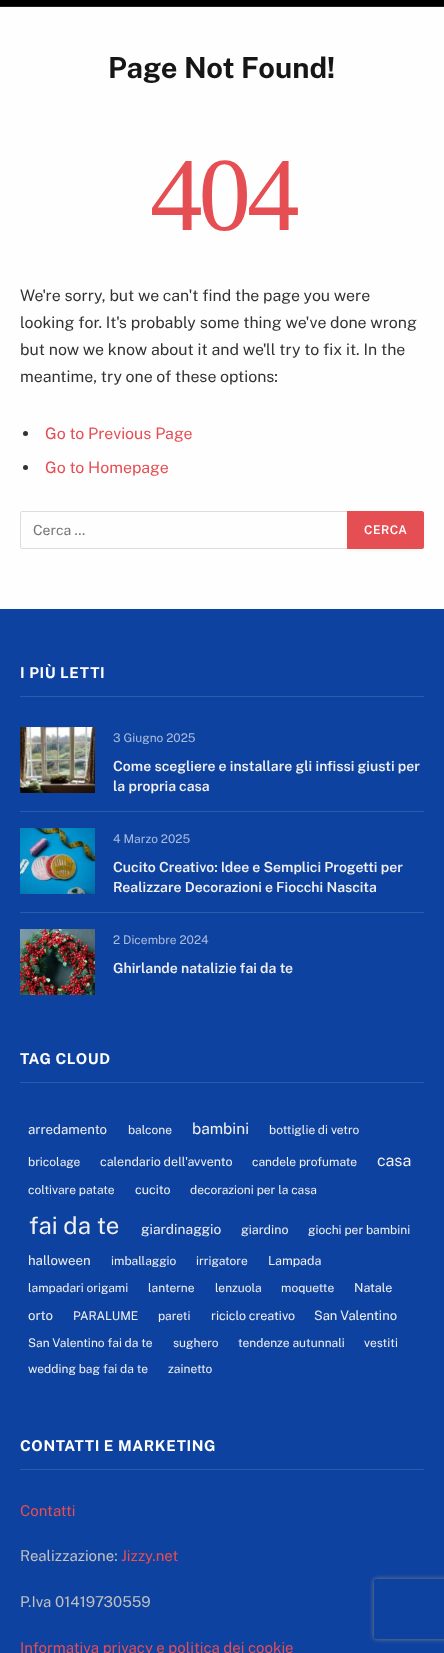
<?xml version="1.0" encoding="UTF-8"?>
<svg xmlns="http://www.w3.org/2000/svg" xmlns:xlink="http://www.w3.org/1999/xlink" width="444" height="1653">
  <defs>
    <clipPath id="clip1"><path d="M 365 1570 h 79 v 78 h -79 z m 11 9 h 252 c 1 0 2 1 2 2 v 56 c 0 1 -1 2 -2 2 h -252 c -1 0 -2 -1 -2 -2 v -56 c 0 -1 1 -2 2 -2 z" clip-rule="evenodd" /></clipPath>
  </defs>
  <rect width="100%" height="100%" fill="#fefefe" />
  <rect width="444" height="6" fill="#000000" />
  <rect y="6" width="444" height="1" fill="#222222" />
  <circle cx="25.5" cy="433.5" r="2.5" fill="#333333" />
  <circle cx="25.5" cy="467.5" r="2.5" fill="#333333" />
  <rect x="20.5" y="511.5" width="328" height="37" rx="1.5" fill="none" stroke="#dddddd" />
  <rect x="351" y="517" width="69" height="30" fill="#000000" fill-opacity="0.16" filter="blur(3.5px)" />
  <path d="M 347 511 h 75 c 1 0 2 1 2 2 v 34 c 0 1 -1 2 -2 2 h -75 z" fill="#e54e53" />
  <rect y="609" width="444" height="1044" fill="#0e42a0" />
  <rect x="20" y="696" width="404" height="1" fill="#2d5bac" />
  <image x="20" y="727" width="75" height="66" xlink:href="image1.png" />
  <rect x="20" y="811" width="404" height="1" fill="#2d5bac" />
  <image x="20" y="828" width="75" height="66" xlink:href="image2.png" />
  <rect x="20" y="912" width="404" height="1" fill="#2d5bac" />
  <image x="20" y="929" width="75" height="66" xlink:href="image3.png" />
  <rect x="20" y="1082" width="404" height="1" fill="#2d5bac" />
  <rect x="20" y="1469" width="404" height="1" fill="#2d5bac" />
  <g clip-path="url(#clip1)">
    <rect x="374" y="1579" width="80" height="60" rx="2" fill="#808080" filter="blur(2.5px)" />
  </g>
  <text x="108" y="78" style="font-family: Public Sans; font-size: 29px; font-weight: bold; fill: #161616">Page Not Found!</text>
  <text x="150" y="230" style="font-family: Liberation Serif; font-size: 105px; letter-spacing: -4px; fill: #e54e53">404</text>
  <text x="20" y="301" style="font-family: Public Sans; font-size: 15.9px; fill: #333333">We're sorry, but we can't find the page you were</text>
  <text x="20" y="328" style="font-family: Public Sans; font-size: 15.9px; fill: #333333">looking for. It's probably some thing we've done wrong</text>
  <text x="20" y="355" style="font-family: Public Sans; font-size: 15.9px; fill: #333333">but now we know about it and we'll try to fix it. In the</text>
  <text x="20" y="382" style="font-family: Public Sans; font-size: 15.9px; fill: #333333">meantime, try one of these options:</text>
  <text x="45" y="439" style="font-family: Public Sans; font-size: 15.9px; fill: #e54e53">Go to Previous Page</text>
  <text x="45" y="473" style="font-family: Public Sans; font-size: 15.9px; fill: #e54e53">Go to Homepage</text>
  <text x="33" y="535" style="font-family: Public Sans; font-size: 14px; fill: #777777">Cerca …</text>
  <text x="364" y="534" style="font-family: Public Sans; font-size: 12px; font-weight: 600; letter-spacing: 0.5px; fill: #ffffff">CERCA</text>
  <text x="20" y="678" style="font-family: Public Sans; font-size: 15px; font-weight: bold; letter-spacing: 0.6px; fill: #ffffff">I PIÙ LETTI</text>
  <text x="113" y="742" style="font-family: Public Sans; font-size: 12px; fill: #abbdde">3 Giugno 2025</text>
  <text x="113" y="771" style="font-family: Public Sans; font-size: 14px; font-weight: 600; fill: #f0f0f0">Come scegliere e installare gli infissi giusti per</text>
  <text x="113" y="791" style="font-family: Public Sans; font-size: 14px; font-weight: 600; fill: #f0f0f0">la propria casa</text>
  <text x="113" y="843" style="font-family: Public Sans; font-size: 12px; fill: #abbdde">4 Marzo 2025</text>
  <text x="113" y="872" style="font-family: Public Sans; font-size: 14px; font-weight: 600; fill: #f0f0f0">Cucito Creativo: Idee e Semplici Progetti per</text>
  <text x="113" y="892" style="font-family: Public Sans; font-size: 14px; font-weight: 600; fill: #f0f0f0">Realizzare Decorazioni e Fiocchi Nascita</text>
  <text x="113" y="944" style="font-family: Public Sans; font-size: 12px; fill: #abbdde">2 Dicembre 2024</text>
  <text x="113" y="973" style="font-family: Public Sans; font-size: 14px; font-weight: 600; fill: #f0f0f0">Ghirlande natalizie fai da te</text>
  <text x="20" y="1064" style="font-family: Public Sans; font-size: 15px; font-weight: bold; letter-spacing: 0.6px; fill: #ffffff">TAG CLOUD</text>
  <text x="28" y="1134" style="font-family: Public Sans; font-size: 13.25px; fill: #f0f0f0">arredamento</text>
  <text x="128" y="1134" style="font-family: Public Sans; font-size: 12px; fill: #f0f0f0">balcone</text>
  <text x="192" y="1134" style="font-family: Public Sans; font-size: 15.5px; fill: #f0f0f0">bambini</text>
  <text x="269" y="1134" style="font-family: Public Sans; font-size: 12px; fill: #f0f0f0">bottiglie di vetro</text>
  <text x="28" y="1166" style="font-family: Public Sans; font-size: 12px; fill: #f0f0f0">bricolage</text>
  <text x="100" y="1166" style="font-family: Public Sans; font-size: 12.5px; fill: #f0f0f0">calendario dell'avvento</text>
  <text x="252" y="1166" style="font-family: Public Sans; font-size: 12px; fill: #f0f0f0">candele profumate</text>
  <text x="377" y="1166" style="font-family: Public Sans; font-size: 16px; fill: #f0f0f0">casa</text>
  <text x="28" y="1194" style="font-family: Public Sans; font-size: 12px; fill: #f0f0f0">coltivare patate</text>
  <text x="135" y="1194" style="font-family: Public Sans; font-size: 12.5px; fill: #f0f0f0">cucito</text>
  <text x="190" y="1194" style="font-family: Public Sans; font-size: 12px; fill: #f0f0f0">decorazioni per la casa</text>
  <text x="29" y="1234" style="font-family: Public Sans; font-size: 24px; fill: #f0f0f0">fai da te</text>
  <text x="141" y="1234" style="font-family: Public Sans; font-size: 13.75px; fill: #f0f0f0">giardinaggio</text>
  <text x="241" y="1234" style="font-family: Public Sans; font-size: 12.5px; fill: #f0f0f0">giardino</text>
  <text x="308" y="1234" style="font-family: Public Sans; font-size: 12px; fill: #f0f0f0">giochi per bambini</text>
  <text x="28" y="1265" style="font-family: Public Sans; font-size: 13.25px; fill: #f0f0f0">halloween</text>
  <text x="111" y="1265" style="font-family: Public Sans; font-size: 12px; fill: #f0f0f0">imballaggio</text>
  <text x="196" y="1265" style="font-family: Public Sans; font-size: 12px; fill: #f0f0f0">irrigatore</text>
  <text x="268" y="1265" style="font-family: Public Sans; font-size: 12.5px; fill: #f0f0f0">Lampada</text>
  <text x="28" y="1292" style="font-family: Public Sans; font-size: 12px; fill: #f0f0f0">lampadari origami</text>
  <text x="148" y="1292" style="font-family: Public Sans; font-size: 12px; fill: #f0f0f0">lanterne</text>
  <text x="215" y="1292" style="font-family: Public Sans; font-size: 12px; fill: #f0f0f0">lenzuola</text>
  <text x="281" y="1292" style="font-family: Public Sans; font-size: 12px; fill: #f0f0f0">moquette</text>
  <text x="354" y="1292" style="font-family: Public Sans; font-size: 12.5px; fill: #f0f0f0">Natale</text>
  <text x="28" y="1320" style="font-family: Public Sans; font-size: 13.25px; fill: #f0f0f0">orto</text>
  <text x="73" y="1320" style="font-family: Public Sans; font-size: 12px; fill: #f0f0f0">PARALUME</text>
  <text x="158" y="1320" style="font-family: Public Sans; font-size: 12px; fill: #f0f0f0">pareti</text>
  <text x="211" y="1320" style="font-family: Public Sans; font-size: 12.5px; fill: #f0f0f0">riciclo creativo</text>
  <text x="314" y="1320" style="font-family: Public Sans; font-size: 13px; fill: #f0f0f0">San Valentino</text>
  <text x="28" y="1347" style="font-family: Public Sans; font-size: 12px; fill: #f0f0f0">San Valentino fai da te</text>
  <text x="173" y="1347" style="font-family: Public Sans; font-size: 12px; fill: #f0f0f0">sughero</text>
  <text x="238" y="1347" style="font-family: Public Sans; font-size: 12px; fill: #f0f0f0">tendenze autunnali</text>
  <text x="364" y="1347" style="font-family: Public Sans; font-size: 12px; fill: #f0f0f0">vestiti</text>
  <text x="28" y="1373" style="font-family: Public Sans; font-size: 12px; fill: #f0f0f0">wedding bag fai da te</text>
  <text x="168" y="1373" style="font-family: Public Sans; font-size: 12px; fill: #f0f0f0">zainetto</text>
  <text x="20" y="1451" style="font-family: Public Sans; font-size: 15px; font-weight: bold; letter-spacing: 0.6px; fill: #ffffff">CONTATTI E MARKETING</text>
  <text x="20" y="1516" style="font-family: Public Sans; font-size: 15px; fill: #e54e53">Contatti</text>
  <text x="20" y="1561" style="font-family: Public Sans; font-size: 15px; fill: #c0c0c0">Realizzazione:</text>
  <text x="121" y="1561" style="font-family: Public Sans; font-size: 15px; fill: #e54e53">Jizzy.net</text>
  <text x="20" y="1607" style="font-family: Public Sans; font-size: 15px; fill: #c0c0c0">P.Iva 01419730559</text>
  <text x="20" y="1653" style="font-family: Public Sans; font-size: 15px; fill: #e54e53">Informativa privacy e politica dei cookie</text>
</svg>
